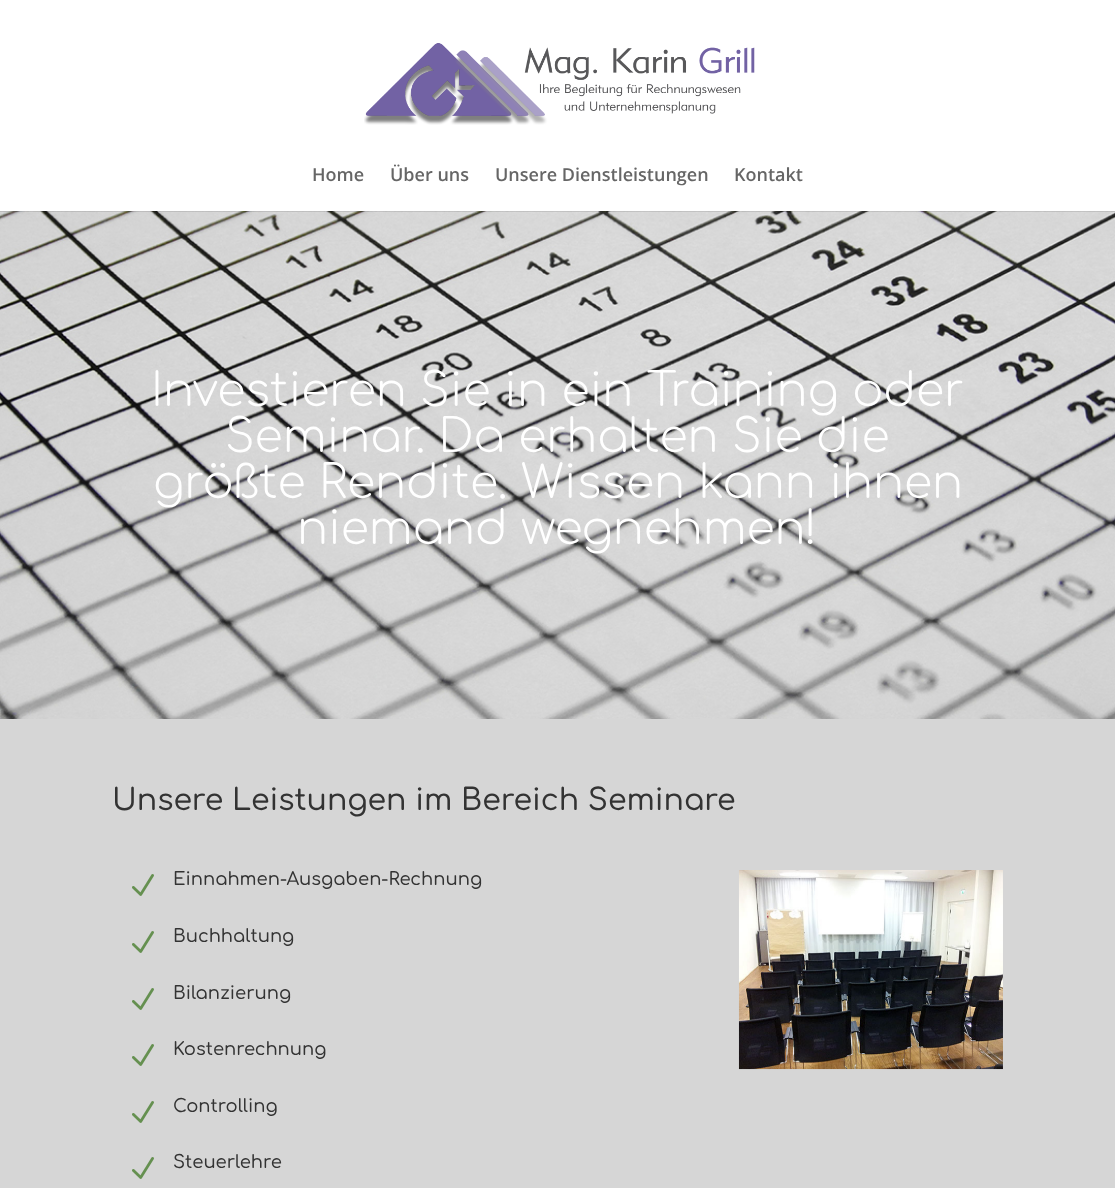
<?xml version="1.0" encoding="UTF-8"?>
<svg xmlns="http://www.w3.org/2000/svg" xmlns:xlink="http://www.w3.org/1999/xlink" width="1115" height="1188">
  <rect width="100%" height="100%" fill="#ffffff" />
  <image x="0" y="211" width="1115" height="508" xlink:href="image2.png" />
  <rect y="211" width="1115" height="1" fill="#000000" fill-opacity="0.1" />
  <image x="364" y="43" width="391" height="82" xlink:href="image1.png" />
  <rect y="719" width="1115" height="469" fill="#d6d6d6" />
  <image x="132" y="874" width="22" height="22" xlink:href="image3.png" />
  <image x="132" y="931" width="22" height="22" xlink:href="image3.png" />
  <image x="132" y="988" width="22" height="22" xlink:href="image3.png" />
  <image x="132" y="1044" width="22" height="22" xlink:href="image3.png" />
  <image x="132" y="1101" width="22" height="22" xlink:href="image3.png" />
  <image x="132" y="1157" width="22" height="22" xlink:href="image3.png" />
  <image x="738" y="870" width="265" height="200" xlink:href="image4.png" />
  <text x="312" y="181" style="font-family: Open Sans; font-size: 18px; font-weight: 600; fill: #666666">Home</text>
  <text x="390" y="181" style="font-family: Open Sans; font-size: 18px; font-weight: 600; fill: #666666">Über uns</text>
  <text x="495" y="181" style="font-family: Open Sans; font-size: 18px; font-weight: 600; fill: #666666">Unsere Dienstleistungen</text>
  <text x="734" y="181" style="font-family: Open Sans; font-size: 18px; font-weight: 600; fill: #666666">Kontakt</text>
  <text x="151" y="406" style="font-family: Comfortaa; font-size: 46px; font-weight: 300; fill: #ffffff">Investieren Sie in ein Training oder</text>
  <text x="225" y="452" style="font-family: Comfortaa; font-size: 46px; font-weight: 300; fill: #ffffff">Seminar. Da erhalten Sie die</text>
  <text x="153" y="498" style="font-family: Comfortaa; font-size: 46px; font-weight: 300; fill: #ffffff">größte Rendite. Wissen kann ihnen</text>
  <text x="297" y="544" style="font-family: Comfortaa; font-size: 46px; font-weight: 300; fill: #ffffff">niemand wegnehmen!</text>
  <text x="112" y="810" style="font-family: Comfortaa; font-size: 30px; font-weight: 500; fill: #333333">Unsere Leistungen im Bereich Seminare</text>
  <text x="173" y="885" style="font-family: Comfortaa; font-size: 18px; font-weight: 500; fill: #333333">Einnahmen-Ausgaben-Rechnung</text>
  <text x="173" y="942" style="font-family: Comfortaa; font-size: 18px; font-weight: 500; fill: #333333">Buchhaltung</text>
  <text x="173" y="999" style="font-family: Comfortaa; font-size: 18px; font-weight: 500; fill: #333333">Bilanzierung</text>
  <text x="173" y="1055" style="font-family: Comfortaa; font-size: 18px; font-weight: 500; fill: #333333">Kostenrechnung</text>
  <text x="173" y="1112" style="font-family: Comfortaa; font-size: 18px; font-weight: 500; fill: #333333">Controlling</text>
  <text x="173" y="1168" style="font-family: Comfortaa; font-size: 18px; font-weight: 500; fill: #333333">Steuerlehre</text>
</svg>
